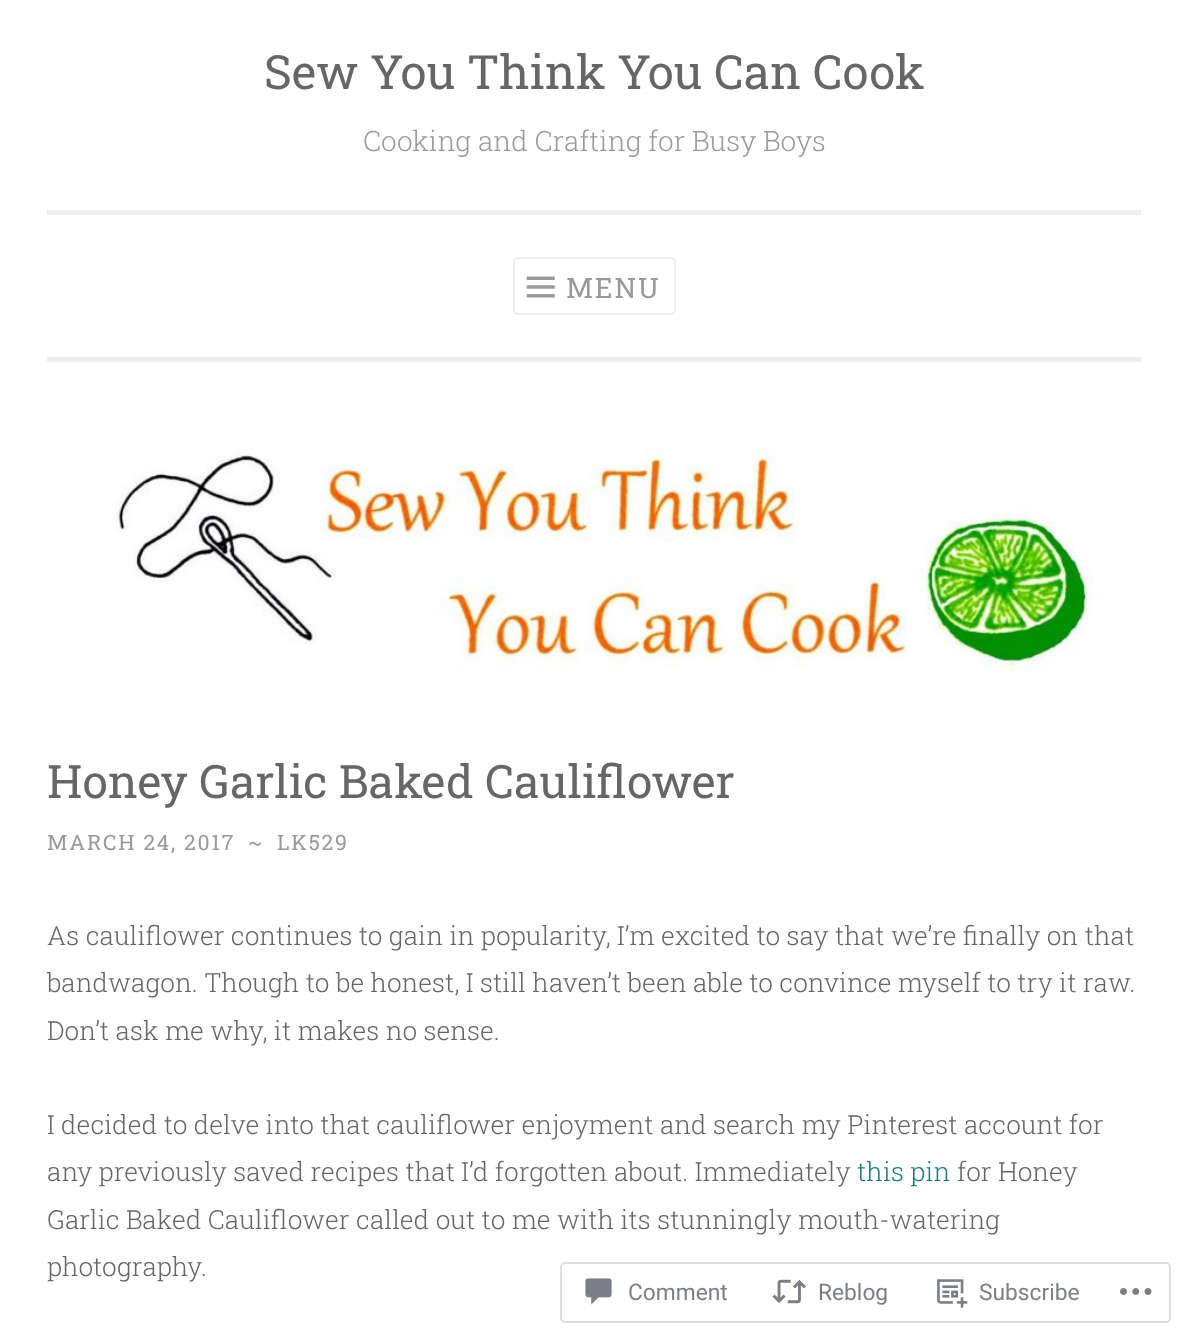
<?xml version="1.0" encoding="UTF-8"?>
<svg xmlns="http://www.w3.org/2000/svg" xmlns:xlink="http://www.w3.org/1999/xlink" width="1187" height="1339">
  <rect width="100%" height="100%" fill="#ffffff" />
  <rect x="47" y="357" width="1094" height="5" fill="#eeeeee" />
  <rect x="47" y="210" width="1094" height="5" fill="#eeeeee" />
  <rect x="514" y="258" width="161" height="56" rx="4" fill="none" stroke="#eeeeee" stroke-width="2" />
  <image x="526" y="276" width="29" height="22" xlink:href="image1.png" />
  <image x="115" y="446" width="979" height="226" xlink:href="image2.png" />
  <rect x="561" y="1263" width="609" height="59" rx="4" fill="none" stroke="#dddddf" stroke-width="2" />
  <image x="585" y="1278" width="27" height="27" xlink:href="image3.png" />
  <image x="772" y="1279" width="34" height="25" xlink:href="image4.png" />
  <image x="937" y="1279" width="31" height="29" xlink:href="image5.png" />
  <image x="1120" y="1288" width="32" height="7" xlink:href="image6.png" />
  <text x="264" y="89" style="font-family: Roboto Slab; font-size: 47.25px; fill: #666666">Sew You Think You Can Cook</text>
  <text x="363" y="151" style="font-family: Roboto Slab; font-size: 28px; font-weight: 300; fill: #999999">Cooking and Crafting for Busy Boys</text>
  <text x="566" y="298" style="font-family: Roboto Slab; font-size: 28px; letter-spacing: 1.75px; fill: #999999">MENU</text>
  <text x="47" y="798" style="font-family: Roboto Slab; font-size: 46px; fill: #666666">Honey Garlic Baked Cauliflower</text>
  <text x="47" y="850" style="font-family: Roboto Slab; font-size: 21.25px; letter-spacing: 1.75px; fill: #999999">MARCH 24, 2017</text>
  <text x="248" y="850" style="font-family: Roboto Slab; font-size: 21.25px; letter-spacing: 1.75px; fill: #999999">~</text>
  <text x="277" y="850" style="font-family: Roboto Slab; font-size: 21.25px; letter-spacing: 1.75px; fill: #999999">LK529</text>
  <text x="47" y="945" style="font-family: Roboto Slab; font-size: 26.25px; font-weight: 300; fill: #666666">As cauliflower continues to gain in popularity, I’m excited to say that we’re finally on that</text>
  <text x="47" y="992" style="font-family: Roboto Slab; font-size: 26.25px; font-weight: 300; fill: #666666">bandwagon. Though to be honest, I still haven’t been able to convince myself to try it raw.</text>
  <text x="47" y="1040" style="font-family: Roboto Slab; font-size: 26.25px; font-weight: 300; fill: #666666">Don’t ask me why, it makes no sense.</text>
  <text x="47" y="1134" style="font-family: Roboto Slab; font-size: 26.25px; font-weight: 300; fill: #666666">I decided to delve into that cauliflower enjoyment and search my Pinterest account for</text>
  <text x="47" y="1181" style="font-family: Roboto Slab; font-size: 26.25px; font-weight: 300; fill: #666666">any previously saved recipes that I’d forgotten about. Immediately</text>
  <text x="857" y="1181" style="font-family: Roboto Slab; font-size: 26.25px; font-weight: 300; fill: #1c7c7c">this pin</text>
  <text x="957" y="1181" style="font-family: Roboto Slab; font-size: 26.25px; font-weight: 300; fill: #666666">for Honey</text>
  <text x="47" y="1229" style="font-family: Roboto Slab; font-size: 26.25px; font-weight: 300; fill: #666666">Garlic Baked Cauliflower called out to me with its stunningly mouth-watering</text>
  <text x="47" y="1276" style="font-family: Roboto Slab; font-size: 26.25px; font-weight: 300; fill: #666666">photography.</text>
  <text x="628" y="1300" style="font-family: Roboto; font-size: 22.75px; fill: #7b7f85">Comment</text>
  <text x="818" y="1300" style="font-family: Roboto; font-size: 22.75px; fill: #7b7f85">Reblog</text>
  <text x="979" y="1300" style="font-family: Roboto; font-size: 22.75px; fill: #7b7f85">Subscribe</text>
</svg>
